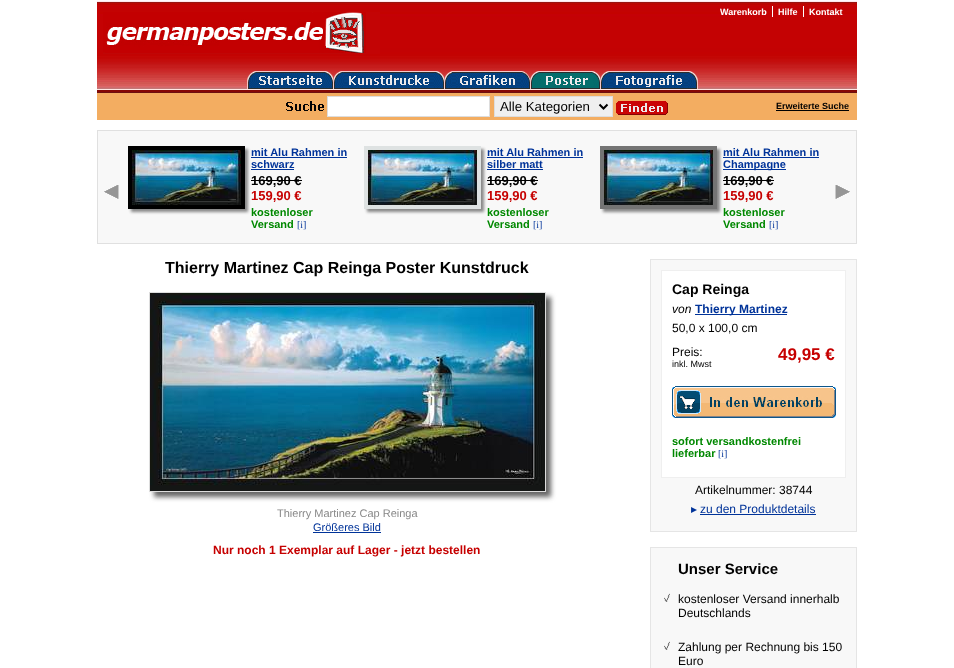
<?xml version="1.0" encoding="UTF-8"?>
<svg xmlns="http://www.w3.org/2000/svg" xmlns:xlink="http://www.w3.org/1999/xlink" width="954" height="668">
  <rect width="100%" height="100%" fill="#ffffff" />
  <image x="97" y="0" width="760" height="93" xlink:href="image1.png" />
  <image x="103" y="12" width="277" height="42" xlink:href="image2.png" />
  <rect x="772" y="6" width="1" height="11" fill="#ffffff" />
  <rect x="803" y="6" width="1" height="11" fill="#ffffff" />
  <image x="247" y="71" width="87" height="18" xlink:href="image3.png" />
  <image x="334" y="71" width="111" height="18" xlink:href="image4.png" />
  <image x="445" y="71" width="86" height="18" xlink:href="image5.png" />
  <image x="531" y="71" width="70" height="18" xlink:href="image6.png" />
  <image x="601" y="71" width="97" height="18" xlink:href="image7.png" />
  <rect x="97" y="93" width="760" height="27" fill="#f3ad61" />
  <image x="286" y="101" width="38" height="10" xlink:href="image8.png" />
  <rect x="327.5" y="96.5" width="162" height="20" fill="#ffffff" stroke="#dddddd" />
  <rect x="494.5" y="96.5" width="118" height="20" fill="#efefef" stroke="#dddddd" />
  <path d="M 599.5 104.5 l 4 4 l 4 -4" fill="none" stroke="#000000" stroke-width="2" />
  <image x="616" y="101" width="52" height="14" xlink:href="image9.png" />
  <rect x="776" y="110" width="73" height="1" fill="#000000" />
  <rect x="97.5" y="130.5" width="759" height="113" fill="#f8f8f8" stroke="#e0e0e0" />
  <image x="104" y="185" width="15" height="14" xlink:href="image10.png" />
  <rect x="131" y="149" width="117" height="63" fill="#888888" filter="blur(1.5px)" />
  <rect x="130" y="148" width="113" height="59" fill="none" stroke="#000000" stroke-width="4" />
  <image x="132" y="150" width="109" height="55" xlink:href="image11.png" />
  <rect x="251" y="157" width="96" height="1" fill="#003399" />
  <rect x="251" y="169" width="43" height="1" fill="#003399" />
  <rect x="251" y="180" width="51" height="1" fill="#000000" />
  <rect x="367" y="149" width="117" height="63" fill="#888888" filter="blur(1.5px)" />
  <rect x="366" y="148" width="113" height="59" fill="none" stroke="#dee2e2" stroke-width="4" />
  <image x="368" y="150" width="109" height="55" xlink:href="image11.png" />
  <rect x="487" y="157" width="96" height="1" fill="#003399" />
  <rect x="487" y="169" width="56" height="1" fill="#003399" />
  <rect x="487" y="180" width="51" height="1" fill="#000000" />
  <rect x="603" y="149" width="117" height="63" fill="#888888" filter="blur(1.5px)" />
  <rect x="602" y="148" width="113" height="59" fill="none" stroke="#747474" stroke-width="4" />
  <image x="604" y="150" width="109" height="55" xlink:href="image11.png" />
  <rect x="723" y="157" width="96" height="1" fill="#003399" />
  <rect x="723" y="169" width="63" height="1" fill="#003399" />
  <rect x="723" y="180" width="51" height="1" fill="#000000" />
  <image x="835" y="185" width="15" height="14" xlink:href="image12.png" />
  <rect x="154" y="297" width="397" height="200" fill="#666666" filter="blur(2.5px)" />
  <rect x="149.5" y="292.5" width="396" height="199" fill="none" stroke="#dddddd" />
  <image x="150" y="293" width="395" height="198" xlink:href="image13.png" />
  <rect x="313" y="532" width="68" height="1" fill="#003399" />
  <rect x="650.5" y="259.5" width="206" height="272" fill="#f8f8f8" stroke="#e5e5e5" />
  <rect x="661.5" y="270.5" width="184" height="207" fill="#ffffff" stroke="#efefef" />
  <rect x="695" y="314" width="92" height="1" fill="#003399" />
  <image x="672" y="386" width="164" height="32" xlink:href="image14.png" />
  <rect x="700" y="514" width="116" height="1" fill="#003399" />
  <rect x="650.5" y="547.5" width="206" height="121" fill="#f8f8f8" stroke="#e5e5e5" />
  <image x="664" y="593" width="6" height="9" xlink:href="image15.png" />
  <image x="664" y="641" width="6" height="9" xlink:href="image15.png" />
  <text x="720" y="15" style="font-family: Liberation Sans; font-size: 9px; font-weight: bold; fill: #ffffff">Warenkorb</text>
  <text x="778" y="15" style="font-family: Liberation Sans; font-size: 9px; font-weight: bold; fill: #ffffff">Hilfe</text>
  <text x="809" y="15" style="font-family: Liberation Sans; font-size: 9px; font-weight: bold; fill: #ffffff">Kontakt</text>
  <text x="500" y="111" style="font-family: Liberation Sans; font-size: 13.25px; fill: #000000">Alle Kategorien</text>
  <text x="776" y="109" style="font-family: Liberation Sans; font-size: 9px; font-weight: bold; fill: #000000">Erweiterte Suche</text>
  <text x="251" y="156" style="font-family: Liberation Sans; font-size: 11px; font-weight: bold; fill: #003399">mit Alu Rahmen in</text>
  <text x="251" y="168" style="font-family: Liberation Sans; font-size: 11px; font-weight: bold; fill: #003399">schwarz</text>
  <text x="251" y="185" style="font-family: Liberation Sans; font-size: 13px; font-weight: bold; fill: #000000">169,90 €</text>
  <text x="251" y="200" style="font-family: Liberation Sans; font-size: 13px; font-weight: bold; fill: #c60000">159,90 €</text>
  <text x="251" y="216" style="font-family: Liberation Sans; font-size: 11px; font-weight: bold; fill: #008800">kostenloser</text>
  <text x="251" y="228" style="font-family: Liberation Sans; font-size: 11px; font-weight: bold; fill: #008800">Versand</text>
  <text x="297" y="228" style="font-family: Liberation Serif; font-size: 10px; fill: #003399">[i]</text>
  <text x="487" y="156" style="font-family: Liberation Sans; font-size: 11px; font-weight: bold; fill: #003399">mit Alu Rahmen in</text>
  <text x="487" y="168" style="font-family: Liberation Sans; font-size: 11px; font-weight: bold; fill: #003399">silber matt</text>
  <text x="487" y="185" style="font-family: Liberation Sans; font-size: 13px; font-weight: bold; fill: #000000">169,90 €</text>
  <text x="487" y="200" style="font-family: Liberation Sans; font-size: 13px; font-weight: bold; fill: #c60000">159,90 €</text>
  <text x="487" y="216" style="font-family: Liberation Sans; font-size: 11px; font-weight: bold; fill: #008800">kostenloser</text>
  <text x="487" y="228" style="font-family: Liberation Sans; font-size: 11px; font-weight: bold; fill: #008800">Versand</text>
  <text x="533" y="228" style="font-family: Liberation Serif; font-size: 10px; fill: #003399">[i]</text>
  <text x="723" y="156" style="font-family: Liberation Sans; font-size: 11px; font-weight: bold; fill: #003399">mit Alu Rahmen in</text>
  <text x="723" y="168" style="font-family: Liberation Sans; font-size: 11px; font-weight: bold; fill: #003399">Champagne</text>
  <text x="723" y="185" style="font-family: Liberation Sans; font-size: 13px; font-weight: bold; fill: #000000">169,90 €</text>
  <text x="723" y="200" style="font-family: Liberation Sans; font-size: 13px; font-weight: bold; fill: #c60000">159,90 €</text>
  <text x="723" y="216" style="font-family: Liberation Sans; font-size: 11px; font-weight: bold; fill: #008800">kostenloser</text>
  <text x="723" y="228" style="font-family: Liberation Sans; font-size: 11px; font-weight: bold; fill: #008800">Versand</text>
  <text x="769" y="228" style="font-family: Liberation Serif; font-size: 10px; fill: #003399">[i]</text>
  <text x="165" y="273" style="font-family: Liberation Sans; font-size: 16px; font-weight: bold; fill: #000000">Thierry Martinez Cap Reinga Poster Kunstdruck</text>
  <text x="277" y="517" style="font-family: Liberation Sans; font-size: 11px; fill: #888888">Thierry Martinez Cap Reinga</text>
  <text x="313" y="531" style="font-family: Liberation Sans; font-size: 11px; fill: #003399">Größeres Bild</text>
  <text x="213" y="554" style="font-family: Liberation Sans; font-size: 12px; font-weight: bold; fill: #c60000">Nur noch 1 Exemplar auf Lager - jetzt bestellen</text>
  <text x="672" y="294" style="font-family: Liberation Sans; font-size: 14px; font-weight: bold; fill: #000000">Cap Reinga</text>
  <text x="672" y="313" style="font-family: Liberation Sans; font-size: 12px; font-style: italic; fill: #000000">von</text>
  <text x="695" y="313" style="font-family: Liberation Sans; font-size: 12px; font-weight: bold; fill: #003399">Thierry Martinez</text>
  <text x="672" y="332" style="font-family: Liberation Sans; font-size: 12px; fill: #000000">50,0 x 100,0 cm</text>
  <text x="672" y="356" style="font-family: Liberation Sans; font-size: 12px; fill: #000000">Preis:</text>
  <text x="672" y="367" style="font-family: Liberation Sans; font-size: 9px; fill: #000000">inkl. Mwst</text>
  <text x="778" y="360" style="font-family: Liberation Sans; font-size: 17px; font-weight: bold; fill: #c60000">49,95 €</text>
  <text x="672" y="445" style="font-family: Liberation Sans; font-size: 11px; font-weight: bold; fill: #008800">sofort versandkostenfrei</text>
  <text x="672" y="457" style="font-family: Liberation Sans; font-size: 11px; font-weight: bold; fill: #008800">lieferbar</text>
  <text x="718" y="457" style="font-family: Liberation Serif; font-size: 10px; fill: #003399">[i]</text>
  <text x="695" y="494" style="font-family: Liberation Sans; font-size: 12px; fill: #000000">Artikelnummer: 38744</text>
  <text x="691" y="513" style="font-family: DejaVu Sans; font-size: 12px; fill: #003399">▸</text>
  <text x="700" y="513" style="font-family: Liberation Sans; font-size: 12px; fill: #003399">zu den Produktdetails</text>
  <text x="678" y="574" style="font-family: Liberation Sans; font-size: 15px; font-weight: bold; fill: #000000">Unser Service</text>
  <text x="678" y="603" style="font-family: Liberation Sans; font-size: 12px; fill: #000000">kostenloser Versand innerhalb</text>
  <text x="678" y="617" style="font-family: Liberation Sans; font-size: 12px; fill: #000000">Deutschlands</text>
  <text x="678" y="651" style="font-family: Liberation Sans; font-size: 12px; fill: #000000">Zahlung per Rechnung bis 150</text>
  <text x="678" y="665" style="font-family: Liberation Sans; font-size: 12px; fill: #000000">Euro</text>
</svg>
